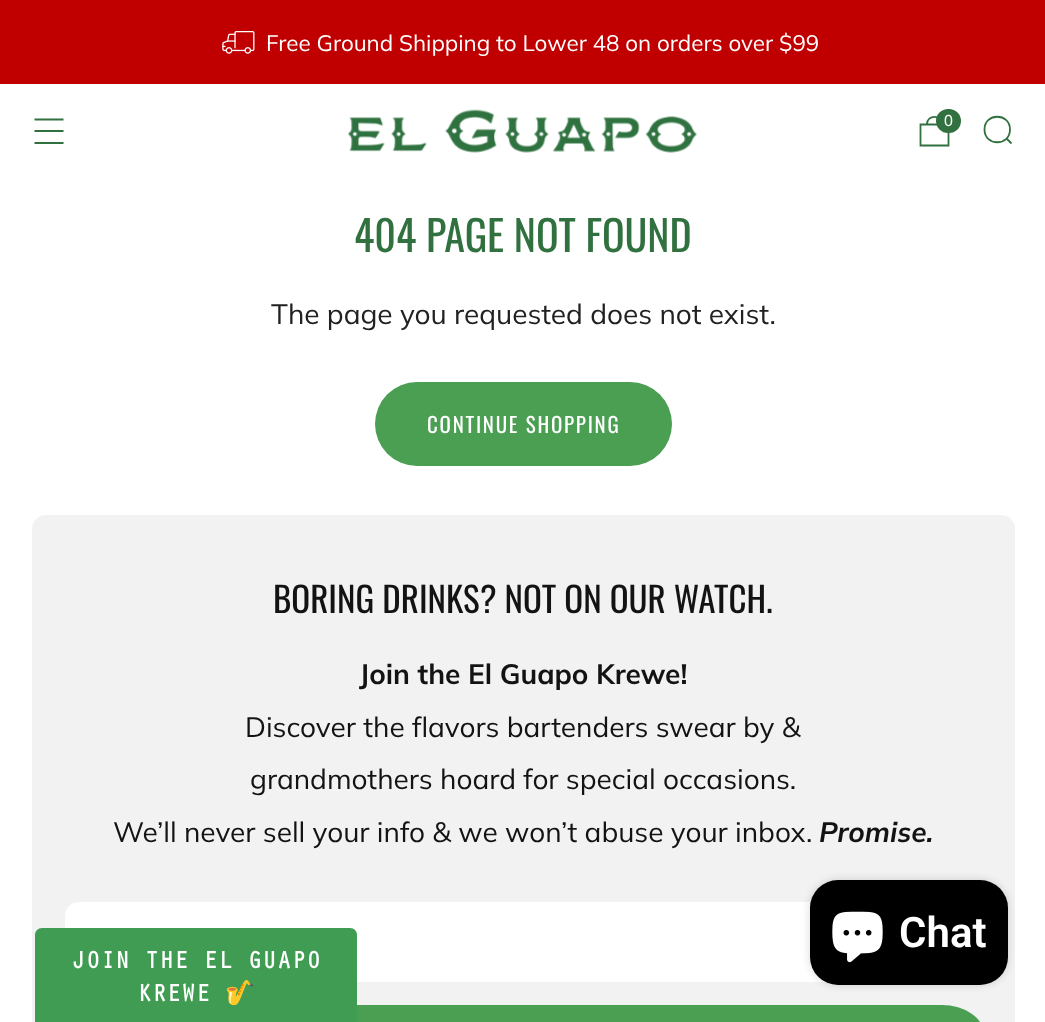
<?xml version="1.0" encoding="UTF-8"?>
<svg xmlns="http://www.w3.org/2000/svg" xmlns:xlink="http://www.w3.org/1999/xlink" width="1045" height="1022">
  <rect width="100%" height="100%" fill="#ffffff" />
  <rect width="1045" height="84" fill="#c00000" />
  <image x="222" y="31" width="33" height="23" xlink:href="image1.png" />
  <path d="M 34.5 119.5 h 29 m -29 11.5 h 29 m -29 12 h 29" fill="none" stroke="#317140" stroke-width="1.8" />
  <image x="348" y="109" width="350" height="44" xlink:href="image2.png" />
  <path d="M 942 124 c 0 -9.5 -15 -9.5 -15 0 m -6.5 0.5 h 28 v 21 h -28 z" fill="none" stroke="#317140" stroke-width="1.8" />
  <rect x="936" y="109" width="25" height="24" rx="12" fill="#317140" />
  <path d="M 1006.5 138.5 l 5 5 m -1.5 -14 c 0 17 -25.5 17 -25.5 0 c 0 -17 25.5 -17 25.5 0 z" fill="none" stroke="#317140" stroke-width="1.8" />
  <rect x="375" y="382" width="297" height="84" rx="42" fill="#4a9f53" />
  <rect x="32" y="515" width="983" height="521" rx="14" fill="#f2f2f2" />
  <rect x="64" y="901" width="919" height="82" rx="15" fill="#ffffff" stroke="#f2f2f2" stroke-width="2" />
  <rect x="63" y="1005" width="921" height="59" rx="42" fill="#4a9f53" />
  <rect x="810" y="880" width="198" height="105" rx="28" fill="#000000" fill-opacity="0.15" filter="blur(4.5px)" />
  <rect x="810" y="880" width="198" height="105" rx="28" fill="#000000" />
  <image x="832" y="911" width="51" height="52" xlink:href="image3.png" />
  <path d="M 42 928 h 308 c 4 0 7 3 7 7 v 87 h -322 v -87 c 0 -4 3 -7 7 -7 z" fill="#419c53" />
  <text x="266" y="51" style="font-family: Muli; font-size: 22.4px; fill: #ffffff">Free Ground Shipping to Lower 48 on orders over $99</text>
  <text x="944" y="126" style="font-family: Liberation Sans; font-size: 16px; fill: #ffffff">0</text>
  <text x="354" y="252" style="font-family: Oswald; font-size: 42px; fill: #317140">404 PAGE NOT FOUND</text>
  <text x="271" y="324" style="font-family: Muli; font-size: 28px; fill: #212121">The page you requested does not exist.</text>
  <text x="427" y="433" style="font-family: Oswald; font-size: 21px; letter-spacing: 1.75px; fill: #ffffff">CONTINUE SHOPPING</text>
  <text x="273" y="613" style="font-family: Oswald; font-size: 35px; fill: #131313">BORING DRINKS? NOT ON OUR WATCH.</text>
  <text x="359" y="684" style="font-family: Muli; font-size: 28px; font-weight: bold; fill: #131313">Join the El Guapo Krewe!</text>
  <text x="245" y="737" style="font-family: Muli; font-size: 28px; fill: #131313">Discover the flavors bartenders swear by &amp;</text>
  <text x="250" y="789" style="font-family: Muli; font-size: 28px; fill: #131313">grandmothers hoard for special occasions.</text>
  <text x="113" y="842" style="font-family: Muli; font-size: 28px; fill: #131313">We’ll never sell your info &amp; we won’t abuse your inbox.</text>
  <text x="819" y="842" style="font-family: Muli; font-size: 28px; font-weight: bold; font-style: italic; fill: #131313">Promise.</text>
  <text x="899" y="947" style="font-family: Roboto; font-size: 42px; font-weight: 600; fill: #ffffff">Chat</text>
  <text x="71" y="968" style="font-family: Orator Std; font-size: 24.5px; font-weight: bold; fill: #ffffff">JOIN THE EL GUAPO</text>
  <text x="137" y="1001" style="font-family: Orator Std; font-size: 24.5px; font-weight: bold; fill: #ffffff">KREWE</text>
  <text x="225" y="1001" style="font-family: Noto Color Emoji; font-size: 24.5px; font-weight: bold; fill: #ffffff">🎷</text>
</svg>
